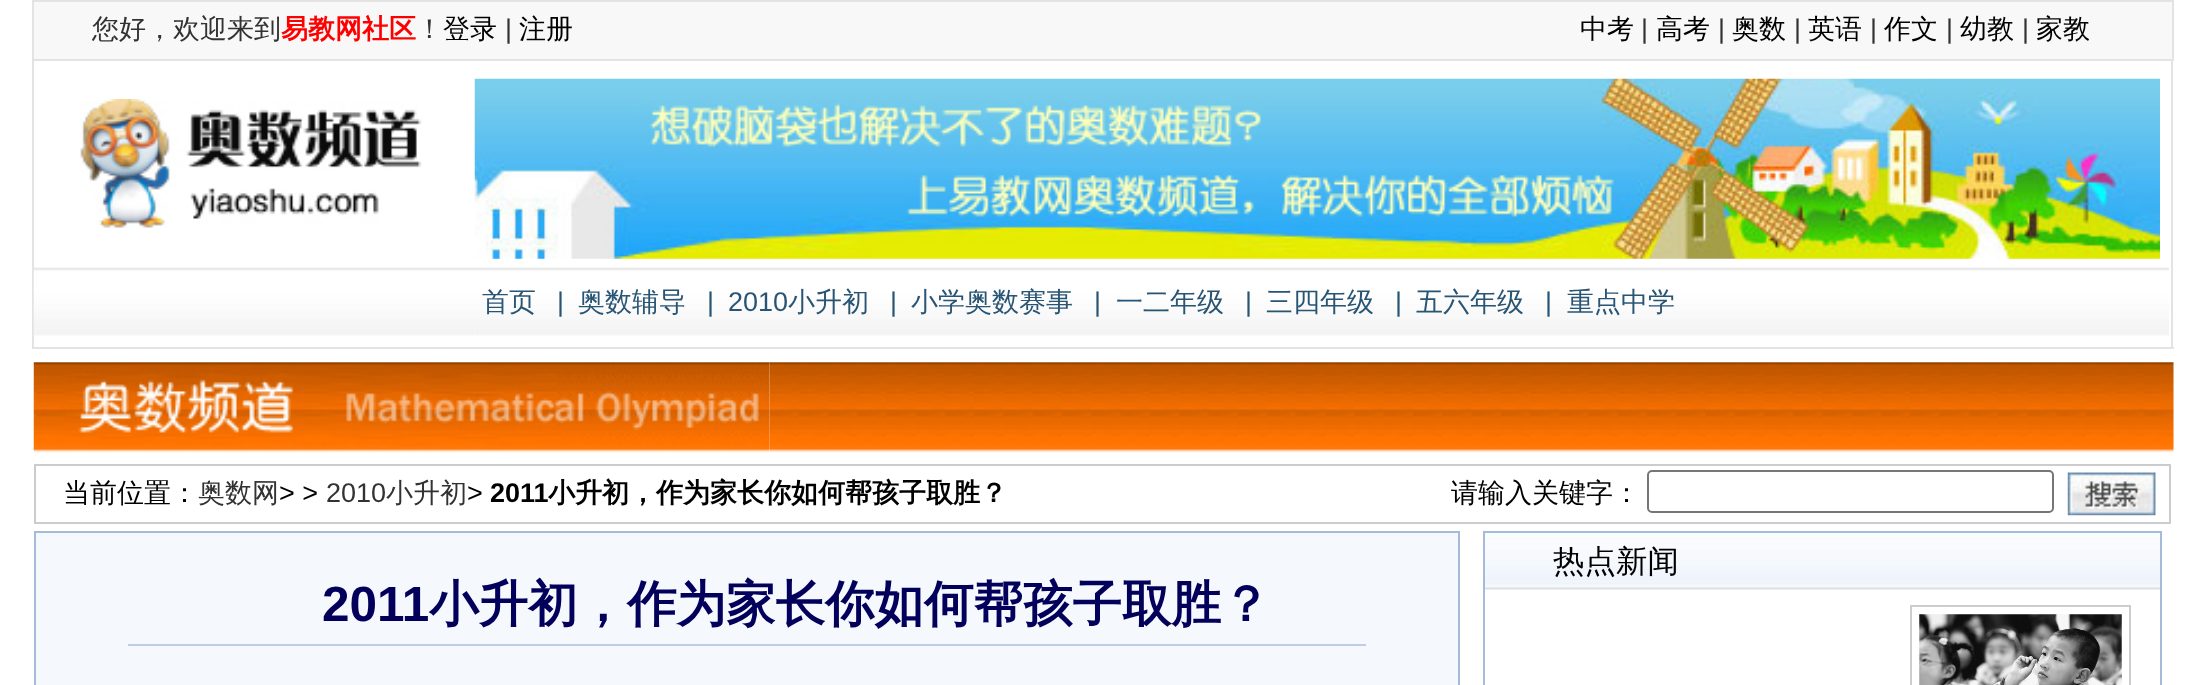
<?xml version="1.0" encoding="UTF-8"?>
<svg xmlns="http://www.w3.org/2000/svg" xmlns:xlink="http://www.w3.org/1999/xlink" width="2204" height="685">
  <rect width="100%" height="100%" fill="#ffffff" />
  <rect x="33" y="1" width="2140" height="59" fill="#f8f8f8" stroke="#e3e3e3" stroke-width="2" />
  <rect x="2171" y="61" width="2" height="288" fill="#e3e3e3" />
  <rect x="32" y="347" width="2142" height="2" fill="#e3e3e3" />
  <rect x="32" y="61" width="2" height="288" fill="#e3e3e3" />
  <image x="80" y="99" width="342" height="129" xlink:href="image1.png" />
  <image x="474" y="78" width="1686" height="181" xlink:href="image2.png" />
  <image x="33" y="267" width="442" height="70" xlink:href="image3.png" />
  <image x="475" y="267" width="1694" height="69" xlink:href="image4.png" />
  <image x="769" y="362" width="1405" height="91" xlink:href="image6.png" />
  <image x="33" y="362" width="737" height="91" xlink:href="image5.png" />
  <rect x="35" y="465" width="2135" height="58" fill="none" stroke="#cccccc" stroke-width="2" />
  <rect x="1648" y="471" width="405" height="41" rx="4" fill="none" stroke="#767676" stroke-width="2" />
  <image x="2067" y="472" width="89" height="44" xlink:href="image7.png" />
  <rect x="1484" y="532" width="677" height="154" fill="none" stroke="#a6bbda" stroke-width="2" />
  <image x="1485" y="533" width="675" height="57" xlink:href="image8.png" />
  <rect x="1911" y="606" width="219" height="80" fill="none" stroke="#cdcdcd" stroke-width="2" />
  <image x="1919" y="614" width="203" height="71" xlink:href="image9.png" />
  <rect x="35" y="532" width="1424" height="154" fill="#f5f8fd" stroke="#a6bbda" stroke-width="2" />
  <rect x="128" y="644" width="1238" height="2" fill="#becde5" />
  <text x="92" y="38" style="font-family: WenQuanYi Zen Hei; font-size: 27px; font-weight: 500; fill: #323232">您好，欢迎来到</text>
  <text x="281" y="38" style="font-family: WenQuanYi Zen Hei; font-size: 27px; font-weight: bold; fill: #ff0000">易教网社区</text>
  <text x="416" y="38" style="font-family: WenQuanYi Zen Hei; font-size: 27px; font-weight: 500; fill: #323232">！</text>
  <text x="443" y="38" style="font-family: WenQuanYi Zen Hei; font-size: 27px; font-weight: 500; fill: #000000">登录</text>
  <text x="505" y="38" style="font-family: Liberation Sans; font-size: 27px; fill: #323232">|</text>
  <text x="519" y="38" style="font-family: WenQuanYi Zen Hei; font-size: 27px; font-weight: 500; fill: #000000">注册</text>
  <text x="1580" y="38" style="font-family: WenQuanYi Zen Hei; font-size: 27px; font-weight: 500; fill: #000000">中考</text>
  <text x="1641" y="38" style="font-family: Liberation Sans; font-size: 27px; fill: #323232">|</text>
  <text x="1656" y="38" style="font-family: WenQuanYi Zen Hei; font-size: 27px; font-weight: 500; fill: #000000">高考</text>
  <text x="1718" y="38" style="font-family: Liberation Sans; font-size: 27px; fill: #323232">|</text>
  <text x="1732" y="38" style="font-family: WenQuanYi Zen Hei; font-size: 27px; font-weight: 500; fill: #000000">奥数</text>
  <text x="1794" y="38" style="font-family: Liberation Sans; font-size: 27px; fill: #323232">|</text>
  <text x="1808" y="38" style="font-family: WenQuanYi Zen Hei; font-size: 27px; font-weight: 500; fill: #000000">英语</text>
  <text x="1870" y="38" style="font-family: Liberation Sans; font-size: 27px; fill: #323232">|</text>
  <text x="1884" y="38" style="font-family: WenQuanYi Zen Hei; font-size: 27px; font-weight: 500; fill: #000000">作文</text>
  <text x="1946" y="38" style="font-family: Liberation Sans; font-size: 27px; fill: #323232">|</text>
  <text x="1960" y="38" style="font-family: WenQuanYi Zen Hei; font-size: 27px; font-weight: 500; fill: #000000">幼教</text>
  <text x="2022" y="38" style="font-family: Liberation Sans; font-size: 27px; fill: #323232">|</text>
  <text x="2036" y="38" style="font-family: WenQuanYi Zen Hei; font-size: 27px; font-weight: 500; fill: #000000">家教</text>
  <text x="482" y="311" style="font-family: WenQuanYi Zen Hei; font-size: 27px; font-weight: 500; fill: #295574">首页</text>
  <text x="557" y="311" style="font-family: Liberation Sans; font-size: 27px; fill: #295574">|</text>
  <text x="578" y="311" style="font-family: WenQuanYi Zen Hei; font-size: 27px; font-weight: 500; fill: #295574">奥数辅导</text>
  <text x="707" y="311" style="font-family: Liberation Sans; font-size: 27px; fill: #295574">|</text>
  <text x="728" y="311" style="font-family: Liberation Sans; font-size: 27px; fill: #295574">2010</text>
  <text x="788" y="311" style="font-family: WenQuanYi Zen Hei; font-size: 27px; font-weight: 500; fill: #295574">小升初</text>
  <text x="890" y="311" style="font-family: Liberation Sans; font-size: 27px; fill: #295574">|</text>
  <text x="911" y="311" style="font-family: WenQuanYi Zen Hei; font-size: 27px; font-weight: 500; fill: #295574">小学奥数赛事</text>
  <text x="1094" y="311" style="font-family: Liberation Sans; font-size: 27px; fill: #295574">|</text>
  <text x="1116" y="311" style="font-family: WenQuanYi Zen Hei; font-size: 27px; font-weight: 500; fill: #295574">一二年级</text>
  <text x="1245" y="311" style="font-family: Liberation Sans; font-size: 27px; fill: #295574">|</text>
  <text x="1266" y="311" style="font-family: WenQuanYi Zen Hei; font-size: 27px; font-weight: 500; fill: #295574">三四年级</text>
  <text x="1395" y="311" style="font-family: Liberation Sans; font-size: 27px; fill: #295574">|</text>
  <text x="1416" y="311" style="font-family: WenQuanYi Zen Hei; font-size: 27px; font-weight: 500; fill: #295574">五六年级</text>
  <text x="1545" y="311" style="font-family: Liberation Sans; font-size: 27px; fill: #295574">|</text>
  <text x="1567" y="311" style="font-family: WenQuanYi Zen Hei; font-size: 27px; font-weight: 500; fill: #295574">重点中学</text>
  <text x="63" y="502" style="font-family: WenQuanYi Zen Hei; font-size: 27px; font-weight: 500; fill: #000000">当前位置：</text>
  <text x="198" y="502" style="font-family: WenQuanYi Zen Hei; font-size: 27px; font-weight: 500; fill: #323232">奥数网</text>
  <text x="279" y="502" style="font-family: Liberation Sans; font-size: 27px; fill: #000000">&gt; &gt;</text>
  <text x="326" y="502" style="font-family: Liberation Sans; font-size: 27px; fill: #323232">2010</text>
  <text x="386" y="502" style="font-family: WenQuanYi Zen Hei; font-size: 27px; font-weight: 500; fill: #323232">小升初</text>
  <text x="467" y="502" style="font-family: Liberation Sans; font-size: 27px; fill: #000000">&gt;</text>
  <text x="490" y="502" style="font-family: Liberation Sans; font-size: 27px; font-weight: bold; fill: #000000">2011</text>
  <text x="548" y="502" style="font-family: WenQuanYi Zen Hei; font-size: 27px; font-weight: bold; fill: #000000">小升初，作为家长你如何帮孩子取胜？</text>
  <text x="1451" y="502" style="font-family: WenQuanYi Zen Hei; font-size: 27px; font-weight: 500; fill: #000000">请输入关键字：</text>
  <text x="1553" y="572" style="font-family: WenQuanYi Zen Hei; font-size: 31.5px; font-weight: 500; fill: #000000">热点新闻</text>
  <text x="322" y="621" style="font-family: Liberation Sans; font-size: 49.5px; font-weight: bold; fill: #03005c">2011</text>
  <text x="429" y="621" style="font-family: WenQuanYi Zen Hei; font-size: 49.5px; font-weight: bold; fill: #03005c">小升初，作为家长你如何帮孩子取胜？</text>
</svg>
